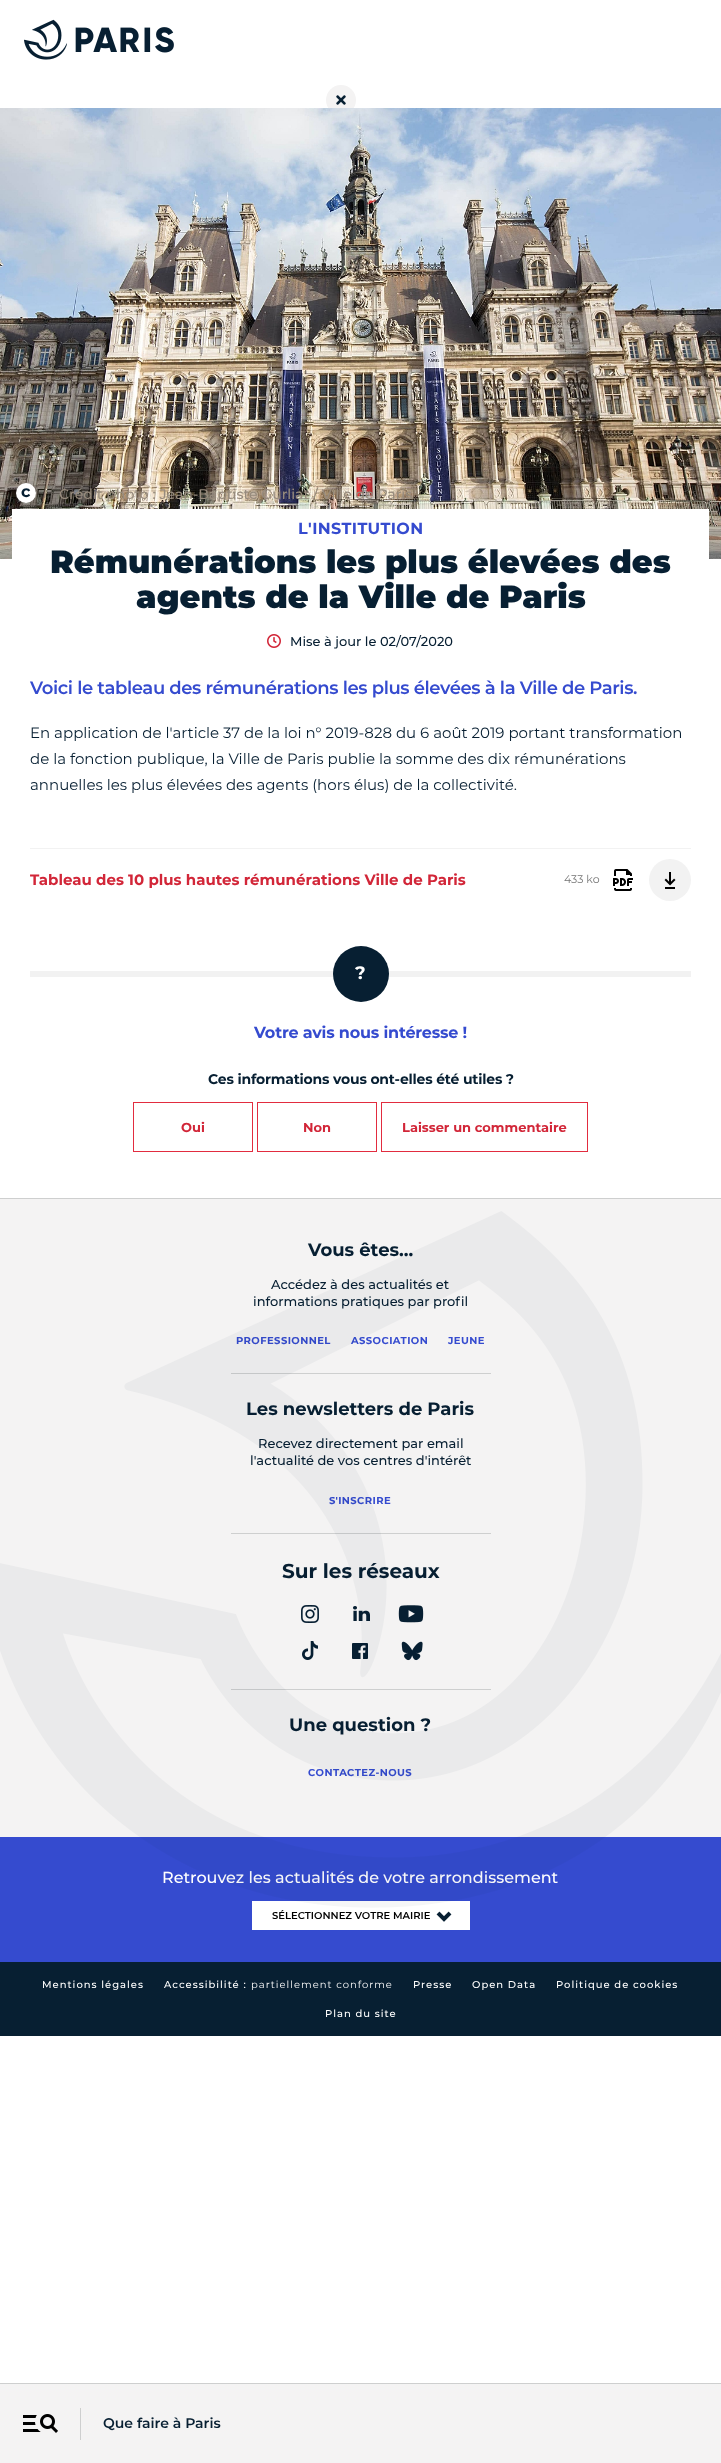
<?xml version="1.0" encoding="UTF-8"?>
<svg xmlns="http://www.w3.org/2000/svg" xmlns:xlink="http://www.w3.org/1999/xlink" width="721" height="2463">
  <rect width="100%" height="100%" fill="#ffffff" />
  <circle cx="341" cy="100" r="15" fill="#f4f3f3" />
  <image x="336" y="95" width="10" height="10" xlink:href="image1.png" />
  <image x="0" y="108" width="721" height="451" xlink:href="image2.png" />
  <circle cx="26" cy="493" r="10" fill="#ffffff" />
  <rect x="12" y="509" width="697" height="50" fill="#ffffff" />
  <image x="267" y="634" width="14" height="14" xlink:href="image3.png" />
  <rect x="30" y="848" width="661" height="1" fill="#f2f2f2" />
  <image x="613" y="869" width="20" height="22" xlink:href="image4.png" />
  <circle cx="670" cy="880" r="21" fill="#f2f2f2" />
  <image x="664" y="872" width="12" height="17" xlink:href="image5.png" />
  <rect x="30" y="971" width="661" height="6" fill="#f2f2f2" />
  <circle cx="361" cy="974" r="28" fill="#071f32" />
  <rect x="133.5" y="1102.5" width="119" height="49" fill="none" stroke="#e22c3f" />
  <rect x="257.5" y="1102.5" width="119" height="49" fill="none" stroke="#e22c3f" />
  <rect x="381.5" y="1102.5" width="206" height="49" fill="none" stroke="#e22c3f" />
  <rect y="1199" width="721" height="638" fill="#f4f3f3" />
  <rect y="1198" width="721" height="1" fill="#cecfcf" />
  <rect x="231" y="1373" width="260" height="1" fill="#cecfcf" />
  <rect x="231" y="1533" width="260" height="1" fill="#cecfcf" />
  <image x="301" y="1605" width="18" height="18" xlink:href="image7.png" />
  <image x="353" y="1606" width="17" height="15" xlink:href="image8.png" />
  <image x="398" y="1605" width="26" height="18" xlink:href="image9.png" />
  <image x="302" y="1641" width="16" height="19" xlink:href="image10.png" />
  <image x="352" y="1643" width="16" height="16" xlink:href="image11.png" />
  <image x="401" y="1641" width="22" height="20" xlink:href="image12.png" />
  <rect x="231" y="1689" width="260" height="1" fill="#cecfcf" />
  <rect y="1837" width="721" height="125" fill="#354bcf" />
  <rect x="252" y="1901" width="218" height="29" fill="#ffffff" />
  <image x="436" y="1911" width="16" height="11" xlink:href="image13.png" />
  <rect y="1962" width="721" height="74" fill="#071f32" />
  <image x="24" y="19" width="150" height="41" xlink:href="image14.png" />
  <rect y="2384" width="721" height="79" fill="#f4f3f3" />
  <rect y="2383" width="721" height="1" fill="#cecfcf" />
  <image x="23" y="2414" width="35" height="19" xlink:href="image15.png" />
  <rect x="80" y="2408" width="1" height="32" fill="#cecfcf" />
  <text x="21" y="497" style="font-family: Montserrat; font-size: 16px; font-weight: bold; fill: #071f32">c</text>
  <text x="59" y="499" style="font-family: Montserrat; font-size: 14px; font-weight: 500; fill: #978b7d">Crédit photo : Jean-Baptiste Gurliat / Ville de Paris</text>
  <text x="298" y="534" style="font-family: Montserrat; font-size: 16px; font-weight: bold; letter-spacing: 0.4px; fill: #354bcf">L'INSTITUTION</text>
  <text x="50" y="573" style="font-family: Montserrat; font-size: 32px; font-weight: 900; fill: #071f32">Rémunérations les plus élevées des</text>
  <text x="136" y="608" style="font-family: Montserrat; font-size: 32px; font-weight: 900; fill: #071f32">agents de la Ville de Paris</text>
  <text x="290" y="646" style="font-family: Montserrat; font-size: 13px; font-weight: 500; fill: #071f32">Mise à jour le 02/07/2020</text>
  <text x="30" y="694" style="font-family: Montserrat; font-size: 18px; font-weight: 600; letter-spacing: -0.4px; fill: #354bcf">Voici le tableau des rémunérations les plus élevées à la Ville de Paris.</text>
  <text x="30" y="738" style="font-family: Montserrat; font-size: 15px; fill: #071f32">En application de l'article 37 de la loi n° 2019-828 du 6 août 2019 portant transformation</text>
  <text x="30" y="764" style="font-family: Montserrat; font-size: 15px; fill: #071f32">de la fonction publique, la Ville de Paris publie la somme des dix rémunérations</text>
  <text x="30" y="790" style="font-family: Montserrat; font-size: 15px; fill: #071f32">annuelles les plus élevées des agents (hors élus) de la collectivité.</text>
  <text x="30" y="885" style="font-family: Montserrat; font-size: 15px; font-weight: bold; fill: #d22638">Tableau des 10 plus hautes rémunérations Ville de Paris</text>
  <text x="564" y="883" style="font-family: Montserrat; font-size: 11px; fill: #767676">433 ko</text>
  <text x="355" y="979" style="font-family: Montserrat; font-size: 18px; font-weight: bold; fill: #ffffff">?</text>
  <text x="254" y="1038" style="font-family: Montserrat; font-size: 16px; font-weight: bold; letter-spacing: -0.2px; fill: #354bcf">Votre avis nous intéresse !</text>
  <text x="208" y="1084" style="font-family: Montserrat; font-size: 14px; font-weight: bold; letter-spacing: -0.2px; fill: #071f32">Ces informations vous ont-elles été utiles ?</text>
  <text x="181" y="1132" style="font-family: Montserrat; font-size: 13px; font-weight: bold; fill: #d22638">Oui</text>
  <text x="303" y="1132" style="font-family: Montserrat; font-size: 13px; font-weight: bold; fill: #d22638">Non</text>
  <text x="402" y="1132" style="font-family: Montserrat; font-size: 13px; font-weight: bold; fill: #d22638">Laisser un commentaire</text>
  <text x="308" y="1256" style="font-family: Montserrat; font-size: 18px; font-weight: bold; fill: #071f32">Vous êtes...</text>
  <text x="271" y="1289" style="font-family: Montserrat; font-size: 13px; font-weight: 500; fill: #071f32">Accédez à des actualités et</text>
  <text x="253" y="1306" style="font-family: Montserrat; font-size: 13px; font-weight: 500; fill: #071f32">informations pratiques par profil</text>
  <text x="236" y="1344" style="font-family: Montserrat; font-size: 10px; font-weight: bold; letter-spacing: 0.4px; fill: #354bcf">PROFESSIONNEL</text>
  <text x="351" y="1344" style="font-family: Montserrat; font-size: 10px; font-weight: bold; letter-spacing: 0.4px; fill: #354bcf">ASSOCIATION</text>
  <text x="448" y="1344" style="font-family: Montserrat; font-size: 10px; font-weight: bold; letter-spacing: 0.4px; fill: #354bcf">JEUNE</text>
  <text x="246" y="1415" style="font-family: Montserrat; font-size: 18px; font-weight: bold; fill: #071f32">Les newsletters de Paris</text>
  <text x="258" y="1448" style="font-family: Montserrat; font-size: 13px; font-weight: 500; fill: #071f32">Recevez directement par email</text>
  <text x="250" y="1465" style="font-family: Montserrat; font-size: 13px; font-weight: 500; fill: #071f32">l'actualité de vos centres d'intérêt</text>
  <text x="329" y="1504" style="font-family: Montserrat; font-size: 10px; font-weight: bold; letter-spacing: 0.4px; fill: #354bcf">S'INSCRIRE</text>
  <text x="282" y="1578" style="font-family: Montserrat; font-size: 20px; font-weight: bold; fill: #071f32">Sur les réseaux</text>
  <text x="289" y="1731" style="font-family: Montserrat; font-size: 18px; font-weight: bold; fill: #071f32">Une question ?</text>
  <text x="308" y="1776" style="font-family: Montserrat; font-size: 10px; font-weight: bold; letter-spacing: 0.4px; fill: #354bcf">CONTACTEZ-NOUS</text>
  <text x="162" y="1883" style="font-family: Montserrat; font-size: 16px; font-weight: 500; fill: #ffffff">Retrouvez les actualités de votre arrondissement</text>
  <image x="0" y="1211" width="721" height="697" xlink:href="image6.png" />
  <text x="272" y="1919" style="font-family: Montserrat; font-size: 10px; font-weight: 600; fill: #000000">SÉLECTIONNEZ VOTRE MAIRIE</text>
  <text x="42" y="1988" style="font-family: Montserrat; font-size: 10px; font-weight: 500; letter-spacing: 1px; fill: #ffffff">Mentions légales</text>
  <text x="164" y="1988" style="font-family: Montserrat; font-size: 10px; font-weight: 500; letter-spacing: 1px; fill: #ffffff">Accessibilité :</text>
  <text x="251" y="1988" style="font-family: Montserrat; font-size: 10px; letter-spacing: 1px; fill: #ffffff">partiellement conforme</text>
  <text x="413" y="1988" style="font-family: Montserrat; font-size: 10px; font-weight: 500; letter-spacing: 1px; fill: #ffffff">Presse</text>
  <text x="472" y="1988" style="font-family: Montserrat; font-size: 10px; font-weight: 500; letter-spacing: 1px; fill: #ffffff">Open Data</text>
  <text x="556" y="1988" style="font-family: Montserrat; font-size: 10px; font-weight: 500; letter-spacing: 1px; fill: #ffffff">Politique de cookies</text>
  <text x="325" y="2017" style="font-family: Montserrat; font-size: 10px; font-weight: 500; letter-spacing: 1px; fill: #ffffff">Plan du site</text>
  <text x="103" y="2428" style="font-family: Montserrat; font-size: 14px; font-weight: 600; fill: #071f32">Que faire à Paris</text>
</svg>
